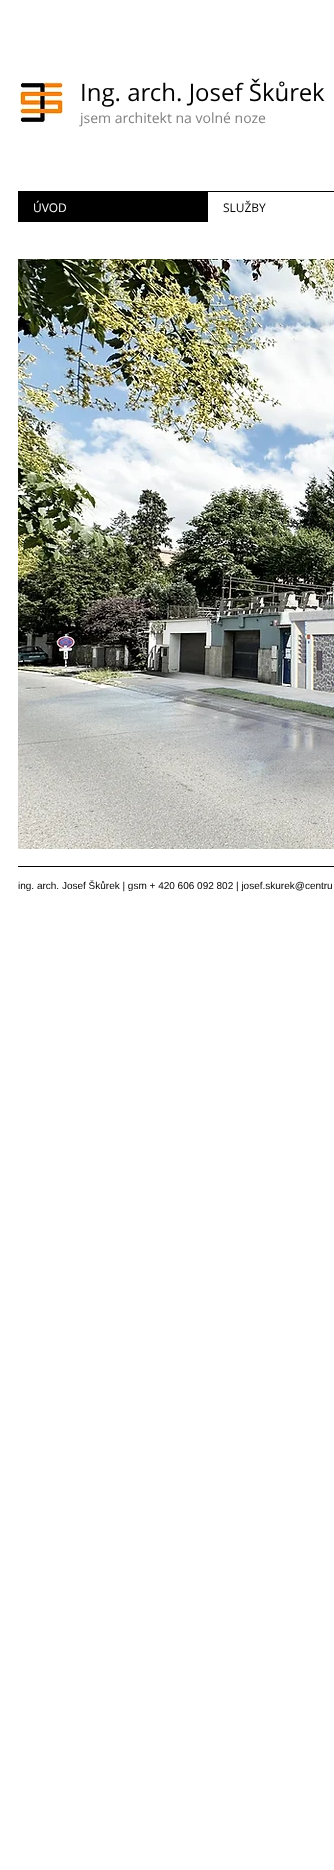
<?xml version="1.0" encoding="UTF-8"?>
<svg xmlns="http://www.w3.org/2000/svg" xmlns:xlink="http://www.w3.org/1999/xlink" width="334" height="1870">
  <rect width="100%" height="100%" fill="#ffffff" />
  <image x="20" y="82" width="43" height="40" xlink:href="image1.png" />
  <rect x="18" y="191" width="316" height="1" fill="#000000" />
  <rect x="18" y="192" width="190" height="30" fill="#000000" />
  <image x="18" y="259" width="316" height="590" xlink:href="image2.png" />
  <rect x="18" y="866" width="316" height="1" fill="#000000" />
  <text x="80" y="101" style="font-family: Open Sans; font-size: 24px; fill: #000000">Ing. arch. Josef Škůrek</text>
  <text x="80" y="123" style="font-family: Open Sans; font-size: 14px; fill: #808080">jsem architekt na volné noze</text>
  <text x="33" y="212" style="font-family: Open Sans; font-size: 12px; fill: #ffffff">ÚVOD</text>
  <text x="223" y="212" style="font-family: Open Sans; font-size: 12px; fill: #000000">SLUŽBY</text>
  <text x="18" y="889" style="font-family: Liberation Sans; font-size: 10px; fill: #000000">ing. arch. Josef Škůrek | gsm + 420 606 092 802 | josef.skurek@centru</text>
</svg>
